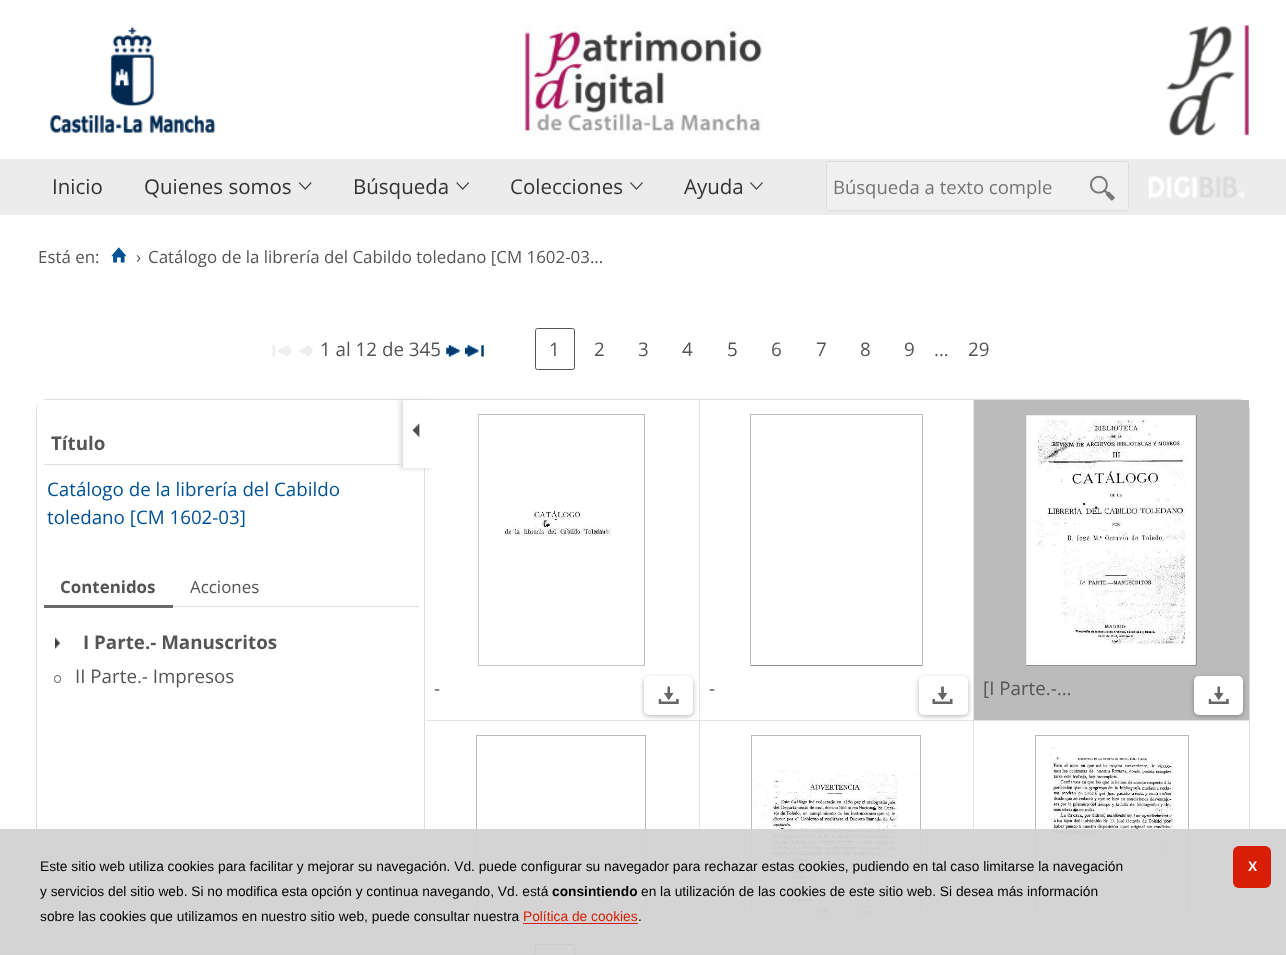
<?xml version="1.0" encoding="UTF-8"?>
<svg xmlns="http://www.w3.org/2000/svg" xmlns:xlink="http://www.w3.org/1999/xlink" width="1286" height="955">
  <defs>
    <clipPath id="clip1"><rect x="425" y="400" width="824" height="514" /></clipPath>
  </defs>
  <rect width="100%" height="100%" fill="#ffffff" />
  <image x="524" y="25" width="239" height="110" xlink:href="image1.png" />
  <image x="49" y="26" width="167" height="107" xlink:href="image2.png" />
  <image x="1166" y="25" width="83" height="111" xlink:href="image3.png" />
  <rect y="159" width="1286" height="56" fill="#ececec" />
  <image x="298" y="182" width="14" height="8" xlink:href="image4.png" />
  <image x="456" y="182" width="13" height="8" xlink:href="image5.png" />
  <image x="630" y="182" width="13" height="8" xlink:href="image6.png" />
  <image x="750" y="182" width="13" height="8" xlink:href="image6.png" />
  <rect x="826.5" y="161.5" width="302" height="49" rx="2" fill="#f0f0f0" stroke="#dddddd" />
  <image x="1090" y="175" width="25" height="26" xlink:href="image7.png" />
  <image x="1148" y="176" width="97" height="22" xlink:href="image8.png" />
  <image x="111" y="247" width="16" height="16" xlink:href="image9.png" />
  <image x="272" y="345" width="20" height="12" xlink:href="image10.png" />
  <image x="299" y="345" width="14" height="12" xlink:href="image11.png" />
  <image x="446" y="345" width="14" height="12" xlink:href="image12.png" />
  <image x="465" y="345" width="19" height="12" xlink:href="image13.png" />
  <rect x="535.5" y="328.5" width="39" height="41" rx="2" fill="none" stroke="#555555" />
  <rect x="36.5" y="399.5" width="1213" height="515" rx="10.5" fill="none" stroke="#dddddd" />
  <rect x="38" y="400" width="8" height="514" fill="#ffffff" />
  <rect x="424" y="468" width="1" height="446" fill="#dddddd" />
  <rect x="44" y="464" width="359" height="1" fill="#dddddd" />
  <rect x="173" y="606" width="246" height="1" fill="#dddddd" />
  <rect x="44" y="605" width="129" height="3" fill="#696969" />
  <image x="55" y="637" width="5" height="12" xlink:href="image14.png" />
  <rect x="54.5" y="675.5" width="6" height="7" rx="3" fill="none" stroke="#555555" />
  <rect x="699" y="400" width="1" height="321" fill="#e5e5e5" />
  <rect x="425" y="720" width="275" height="1" fill="#e5e5e5" />
  <rect x="425" y="720" width="1" height="1" fill="#ffffff" />
  <rect x="400" y="400" width="31" height="69" fill="#dddddd" filter="blur(2px)" />
  <rect x="403" y="400" width="31" height="68" fill="#ffffff" />
  <image x="412" y="423" width="8" height="15" xlink:href="image15.png" />
  <rect x="1240" y="400" width="9" height="514" fill="#ffffff" />
  <rect x="478.5" y="414.5" width="166" height="251" fill="none" stroke="#bbbbbb" />
  <image x="478" y="415" width="166" height="251" xlink:href="image16.png" />
  <rect x="644" y="678" width="49" height="38" rx="5" fill="#000000" fill-opacity="0.3" filter="blur(2.5px)" />
  <rect x="644" y="676" width="49" height="39" rx="5" fill="#ffffff" />
  <image x="658" y="686" width="21" height="18" xlink:href="image17.png" />
  <rect x="973" y="400" width="1" height="321" fill="#e5e5e5" />
  <rect x="700" y="720" width="274" height="1" fill="#e5e5e5" />
  <rect x="750.5" y="414.5" width="172" height="251" fill="none" stroke="#bbbbbb" />
  <image x="751" y="665" width="171" height="1" xlink:href="image18.png" />
  <rect x="919" y="678" width="49" height="38" rx="5" fill="#000000" fill-opacity="0.3" filter="blur(2.5px)" />
  <rect x="919" y="676" width="49" height="39" rx="5" fill="#ffffff" />
  <image x="932" y="686" width="21" height="18" xlink:href="image19.png" />
  <rect x="974" y="400" width="275" height="320" fill="#bbbbbb" />
  <rect x="974" y="720" width="275" height="1" fill="#e5e5e5" />
  <image x="1026" y="415" width="171" height="251" xlink:href="image20.png" />
  <rect x="1194" y="678" width="49" height="38" rx="5" fill="#000000" fill-opacity="0.3" filter="blur(2.5px)" />
  <rect x="1194" y="676" width="49" height="39" rx="5" fill="#ffffff" />
  <image x="1208" y="686" width="21" height="18" xlink:href="image17.png" />
  <rect x="699" y="721" width="1" height="193" fill="#e5e5e5" />
  <rect x="535.5" y="944.5" width="39" height="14" rx="2" fill="none" stroke="#555555" />
  <g clip-path="url(#clip1)">
    <rect x="476.5" y="735.5" width="169" height="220" fill="none" stroke="#bbbbbb" />
  </g>
  <rect x="973" y="721" width="1" height="193" fill="#e5e5e5" />
  <g clip-path="url(#clip1)">
    <rect x="751.5" y="735.5" width="169" height="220" fill="none" stroke="#bbbbbb" />
  </g>
  <image x="752" y="770" width="167" height="144" xlink:href="image21.png" />
  <g clip-path="url(#clip1)">
    <rect x="1035.5" y="735.5" width="153" height="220" fill="none" stroke="#bbbbbb" />
  </g>
  <image x="1049" y="745" width="125" height="169" xlink:href="image22.png" />
  <rect y="829" width="1286" height="126" fill="#d2d2d2" fill-opacity="0.95" />
  <path d="M 0 954.5 h 1286" fill="none" stroke="#cccccc" stroke-width="1.2" stroke-dasharray="1.25 1.25" />
  <rect x="523" y="923" width="115" height="1" fill="#d81e05" />
  <rect x="1233" y="846" width="38" height="42" rx="6" fill="#d81e05" />
  <text x="52" y="194" style="font-family: Open Sans; font-size: 20.5px; fill: #333333">Inicio</text>
  <text x="144" y="194" style="font-family: Open Sans; font-size: 20.5px; fill: #333333">Quienes somos</text>
  <text x="353" y="194" style="font-family: Open Sans; font-size: 20.5px; fill: #333333">Búsqueda</text>
  <text x="510" y="194" style="font-family: Open Sans; font-size: 20.5px; fill: #333333">Colecciones</text>
  <text x="684" y="194" style="font-family: Open Sans; font-size: 20.5px; fill: #333333">Ayuda</text>
  <text x="833" y="194" style="font-family: Open Sans; font-size: 18.5px; fill: #757575">Búsqueda a texto comple</text>
  <text x="38" y="263" style="font-family: Open Sans; font-size: 16.9px; fill: #555555">Está en:</text>
  <text x="136" y="263" style="font-family: Open Sans; font-size: 16.9px; fill: #555555">›</text>
  <text x="148" y="263" style="font-family: Open Sans; font-size: 16.9px; fill: #555555">Catálogo de la librería del Cabildo toledano [CM 1602-03...</text>
  <text x="320" y="356" style="font-family: Open Sans; font-size: 18.75px; fill: #555555">1 al 12 de 345</text>
  <text x="549" y="356" style="font-family: Open Sans; font-size: 18.75px; fill: #555555">1</text>
  <text x="594" y="356" style="font-family: Open Sans; font-size: 18.75px; fill: #555555">2</text>
  <text x="638" y="356" style="font-family: Open Sans; font-size: 18.75px; fill: #555555">3</text>
  <text x="682" y="356" style="font-family: Open Sans; font-size: 18.75px; fill: #555555">4</text>
  <text x="727" y="356" style="font-family: Open Sans; font-size: 18.75px; fill: #555555">5</text>
  <text x="771" y="356" style="font-family: Open Sans; font-size: 18.75px; fill: #555555">6</text>
  <text x="816" y="356" style="font-family: Open Sans; font-size: 18.75px; fill: #555555">7</text>
  <text x="860" y="356" style="font-family: Open Sans; font-size: 18.75px; fill: #555555">8</text>
  <text x="904" y="356" style="font-family: Open Sans; font-size: 18.75px; fill: #555555">9</text>
  <text x="934" y="356" style="font-family: Open Sans; font-size: 18.75px; fill: #555555">...</text>
  <text x="968" y="356" style="font-family: Open Sans; font-size: 18.75px; fill: #555555">29</text>
  <text x="51" y="450" style="font-family: Open Sans; font-size: 18.75px; font-weight: bold; fill: #555555">Título</text>
  <text x="47" y="496" style="font-family: Open Sans; font-size: 18.75px; fill: #005196">Catálogo de la librería del Cabildo</text>
  <text x="47" y="524" style="font-family: Open Sans; font-size: 18.75px; fill: #005196">toledano [CM 1602-03]</text>
  <text x="60" y="593" style="font-family: Open Sans; font-size: 16.9px; font-weight: bold; fill: #555555">Contenidos</text>
  <text x="190" y="593" style="font-family: Open Sans; font-size: 16.9px; fill: #555555">Acciones</text>
  <text x="83" y="649" style="font-family: Open Sans; font-size: 18.75px; font-weight: bold; fill: #555555">I Parte.- Manuscritos</text>
  <text x="75" y="683" style="font-family: Open Sans; font-size: 18.75px; fill: #555555">II Parte.- Impresos</text>
  <text x="434" y="695" style="font-family: Open Sans; font-size: 18.75px; fill: #555555">-</text>
  <text x="709" y="695" style="font-family: Open Sans; font-size: 18.75px; fill: #555555">-</text>
  <text x="983" y="695" style="font-family: Open Sans; font-size: 18.75px; fill: #555555">[I Parte.-...</text>
  <text x="40" y="871" style="font-family: Liberation Sans; font-size: 13.75px; fill: #000000">Este sitio web utiliza cookies para facilitar y mejorar su navegación. Vd. puede configurar su navegador para rechazar estas cookies, pudiendo en tal caso limitarse la navegación</text>
  <text x="40" y="896" style="font-family: Liberation Sans; font-size: 13.75px; fill: #000000">y servicios del sitio web. Si no modifica esta opción y continua navegando, Vd. está</text>
  <text x="552" y="896" style="font-family: Liberation Sans; font-size: 13.75px; font-weight: bold; fill: #000000">consintiendo</text>
  <text x="641" y="896" style="font-family: Liberation Sans; font-size: 13.75px; fill: #000000">en la utilización de las cookies de este sitio web. Si desea más información</text>
  <text x="40" y="921" style="font-family: Liberation Sans; font-size: 13.75px; fill: #000000">sobre las cookies que utilizamos en nuestro sitio web, puede consultar nuestra</text>
  <text x="523" y="921" style="font-family: Liberation Sans; font-size: 13.75px; fill: #d81e05">Política de cookies</text>
  <text x="638" y="921" style="font-family: Liberation Sans; font-size: 13.75px; fill: #000000">.</text>
  <text x="1248" y="871" style="font-family: Liberation Sans; font-size: 13.75px; font-weight: bold; letter-spacing: -1px; fill: #ffffff">X</text>
</svg>
